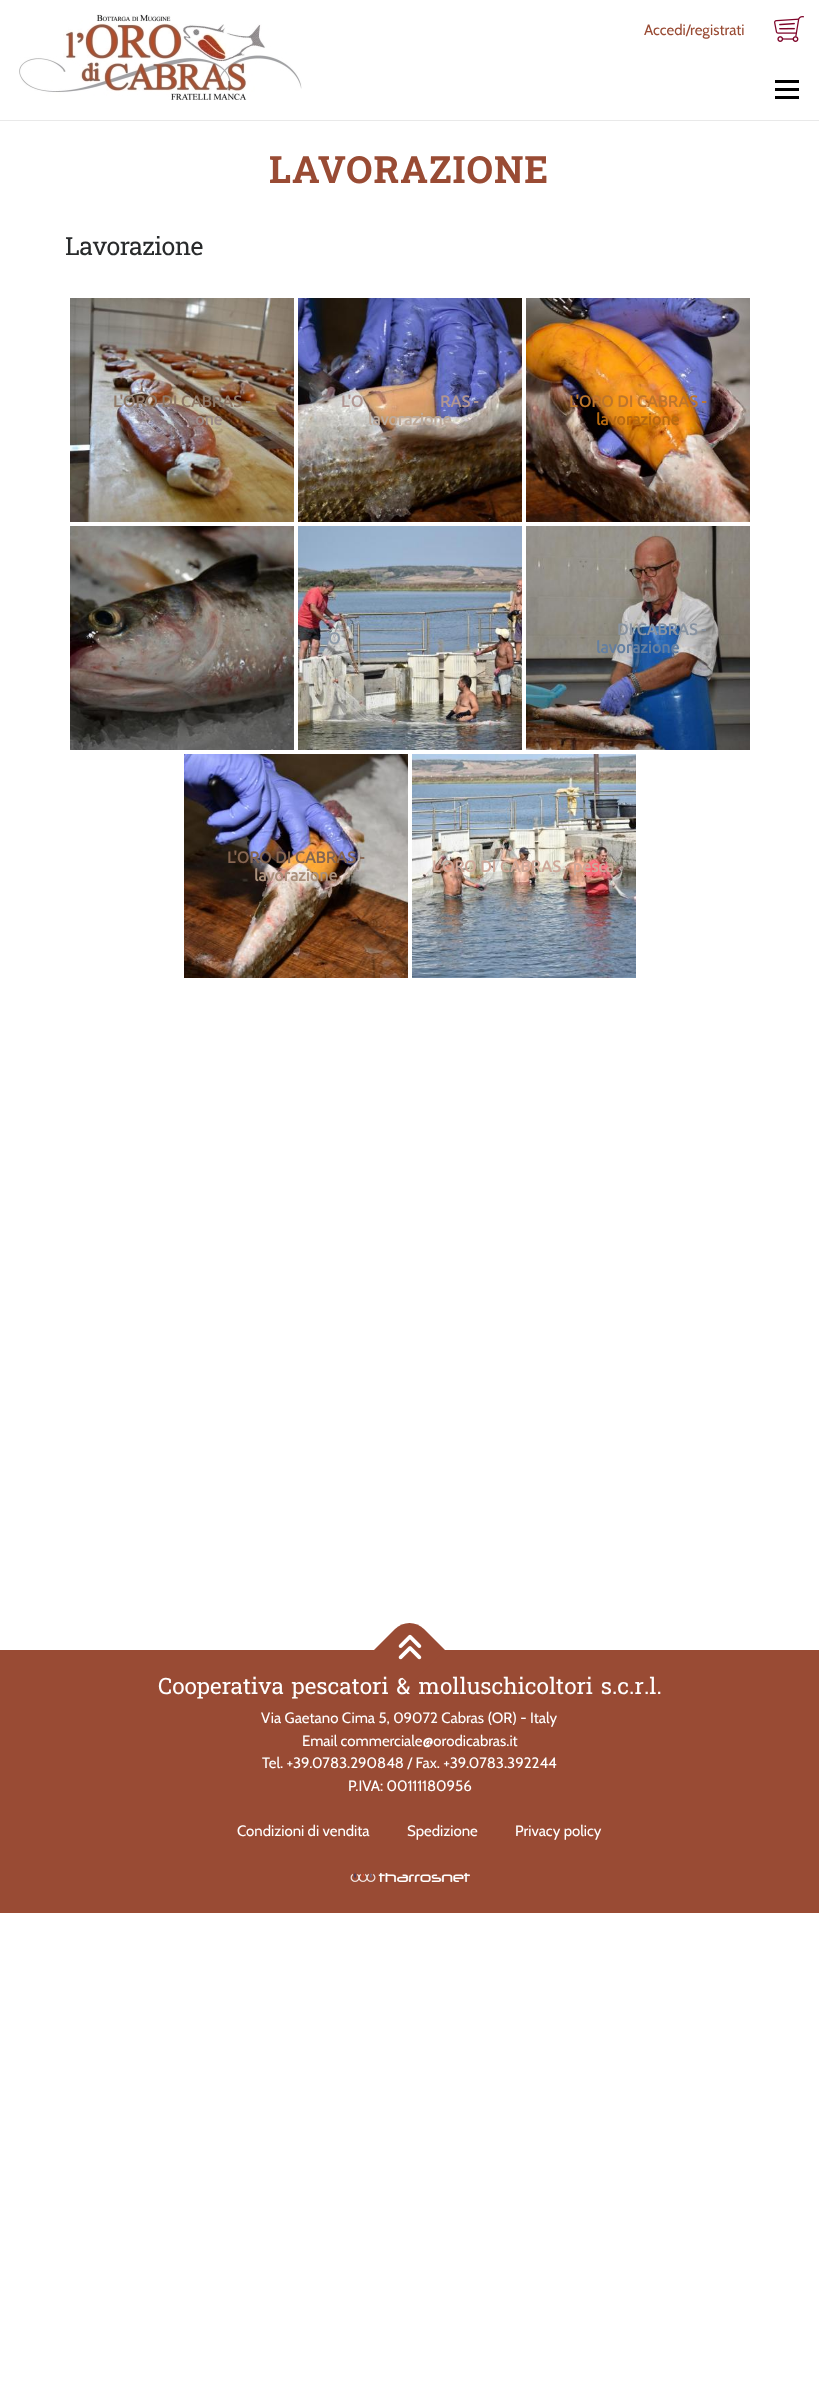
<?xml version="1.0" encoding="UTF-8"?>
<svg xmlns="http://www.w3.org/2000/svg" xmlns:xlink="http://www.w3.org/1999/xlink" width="819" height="2381">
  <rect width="100%" height="100%" fill="#ffffff" />
  <image x="19" y="14" width="283" height="86" xlink:href="image1.png" />
  <image x="774" y="16" width="30" height="26" xlink:href="image2.png" />
  <rect x="775" y="88" width="24" height="3" fill="#000000" />
  <rect x="775" y="80" width="24" height="3" fill="#000000" />
  <rect x="775" y="96" width="24" height="3" fill="#000000" />
  <rect y="120" width="819" height="1" fill="#e9e9e9" />
  <image x="70" y="298" width="224" height="224" xlink:href="image3.png" />
  <image x="298" y="298" width="224" height="224" xlink:href="image4.png" />
  <image x="526" y="298" width="224" height="224" xlink:href="image5.png" />
  <image x="70" y="526" width="224" height="224" xlink:href="image6.png" />
  <image x="298" y="526" width="224" height="224" xlink:href="image7.png" />
  <image x="526" y="526" width="224" height="224" xlink:href="image8.png" />
  <image x="184" y="754" width="224" height="224" xlink:href="image9.png" />
  <image x="412" y="754" width="224" height="224" xlink:href="image10.png" />
  <rect y="1650" width="819" height="263" fill="#994b34" />
  <image x="350" y="1873" width="120" height="9" xlink:href="image12.png" />
  <text x="644" y="35" style="font-family: Cabin; font-size: 15px; fill: #994b34">Accedi/registrati</text>
  <text x="269" y="183" style="font-family: Battambang; font-size: 37.5px; font-weight: bold; letter-spacing: 1px; fill: #994b34">LAVORAZIONE</text>
  <text x="65" y="255" style="font-family: Battambang; font-size: 25px; letter-spacing: -0.6px; fill: #292b2c">Lavorazione</text>
  <text x="113" y="407" style="font-family: Ubuntu; font-size: 16px; font-weight: bold; fill: #8f7867">L'ORO DI CABRAS -</text>
  <text x="195" y="425" style="font-family: Ubuntu; font-size: 16px; font-weight: bold; fill: #9c8b87">one</text>
  <text x="341" y="407" style="font-family: Ubuntu; font-size: 16px; font-weight: bold; fill: #b19692">L'O</text>
  <text x="440" y="407" style="font-family: Ubuntu; font-size: 16px; font-weight: bold; fill: #b19692">RAS -</text>
  <text x="368" y="425" style="font-family: Ubuntu; font-size: 16px; font-weight: bold; fill: #bdaa9b">lavorazione</text>
  <text x="569" y="407" style="font-family: Ubuntu; font-size: 16px; font-weight: bold; fill: #be762c">L'ORO DI CABRAS -</text>
  <text x="596" y="425" style="font-family: Ubuntu; font-size: 16px; font-weight: bold; fill: #b86a10">lavorazione</text>
  <text x="119" y="635" style="font-family: Ubuntu; font-size: 16px; font-weight: bold; fill: #7e7067">'</text>
  <text x="245" y="635" style="font-family: Ubuntu; font-size: 16px; font-weight: bold; fill: #7e7067">-</text>
  <text x="328" y="644" style="font-family: Ubuntu; font-size: 16px; font-weight: bold; fill: #8d9aa8">O</text>
  <text x="617" y="635" style="font-family: Ubuntu; font-size: 16px; font-weight: bold; fill: #8893a1">DI CABRAS -</text>
  <text x="596" y="653" style="font-family: Ubuntu; font-size: 16px; font-weight: bold; fill: #647fa0">lavorazione</text>
  <text x="227" y="863" style="font-family: Ubuntu; font-size: 16px; font-weight: bold; fill: #866651">L'ORO DI CABRAS -</text>
  <text x="254" y="881" style="font-family: Ubuntu; font-size: 16px; font-weight: bold; fill: #aa907c">lavorazione</text>
  <text x="432" y="872" style="font-family: Ubuntu; font-size: 16px; font-weight: bold; fill: #cea89a">L'ORO DI CABRAS - pesca</text>
  <text x="158" y="1694" style="font-family: Battambang; font-size: 22.5px; fill: #ffffff">Cooperativa pescatori &amp; molluschicoltori s.c.r.l.</text>
  <path d="M 374 1650 l 21 -21 c 8 -8 21 -8 29 0 l 21 21 l -35 35 z" fill="#994b34" />
  <image x="398" y="1634" width="24" height="26" xlink:href="image11.png" />
  <text x="261" y="1723" style="font-family: Cabin; font-size: 15px; fill: #ffffff">Via Gaetano Cima 5, 09072 Cabras (OR) - Italy</text>
  <text x="302" y="1746" style="font-family: Cabin; font-size: 15px; fill: #ffffff">Email commerciale@orodicabras.it</text>
  <text x="262" y="1768" style="font-family: Cabin; font-size: 15px; fill: #ffffff">Tel. +39.0783.290848 / Fax. +39.0783.392244</text>
  <text x="348" y="1791" style="font-family: Cabin; font-size: 15px; fill: #ffffff">P.IVA: 00111180956</text>
  <text x="237" y="1836" style="font-family: Cabin; font-size: 15px; fill: #ffffff">Condizioni di vendita</text>
  <text x="407" y="1836" style="font-family: Cabin; font-size: 15px; fill: #ffffff">Spedizione</text>
  <text x="515" y="1836" style="font-family: Cabin; font-size: 15px; fill: #ffffff">Privacy policy</text>
</svg>
